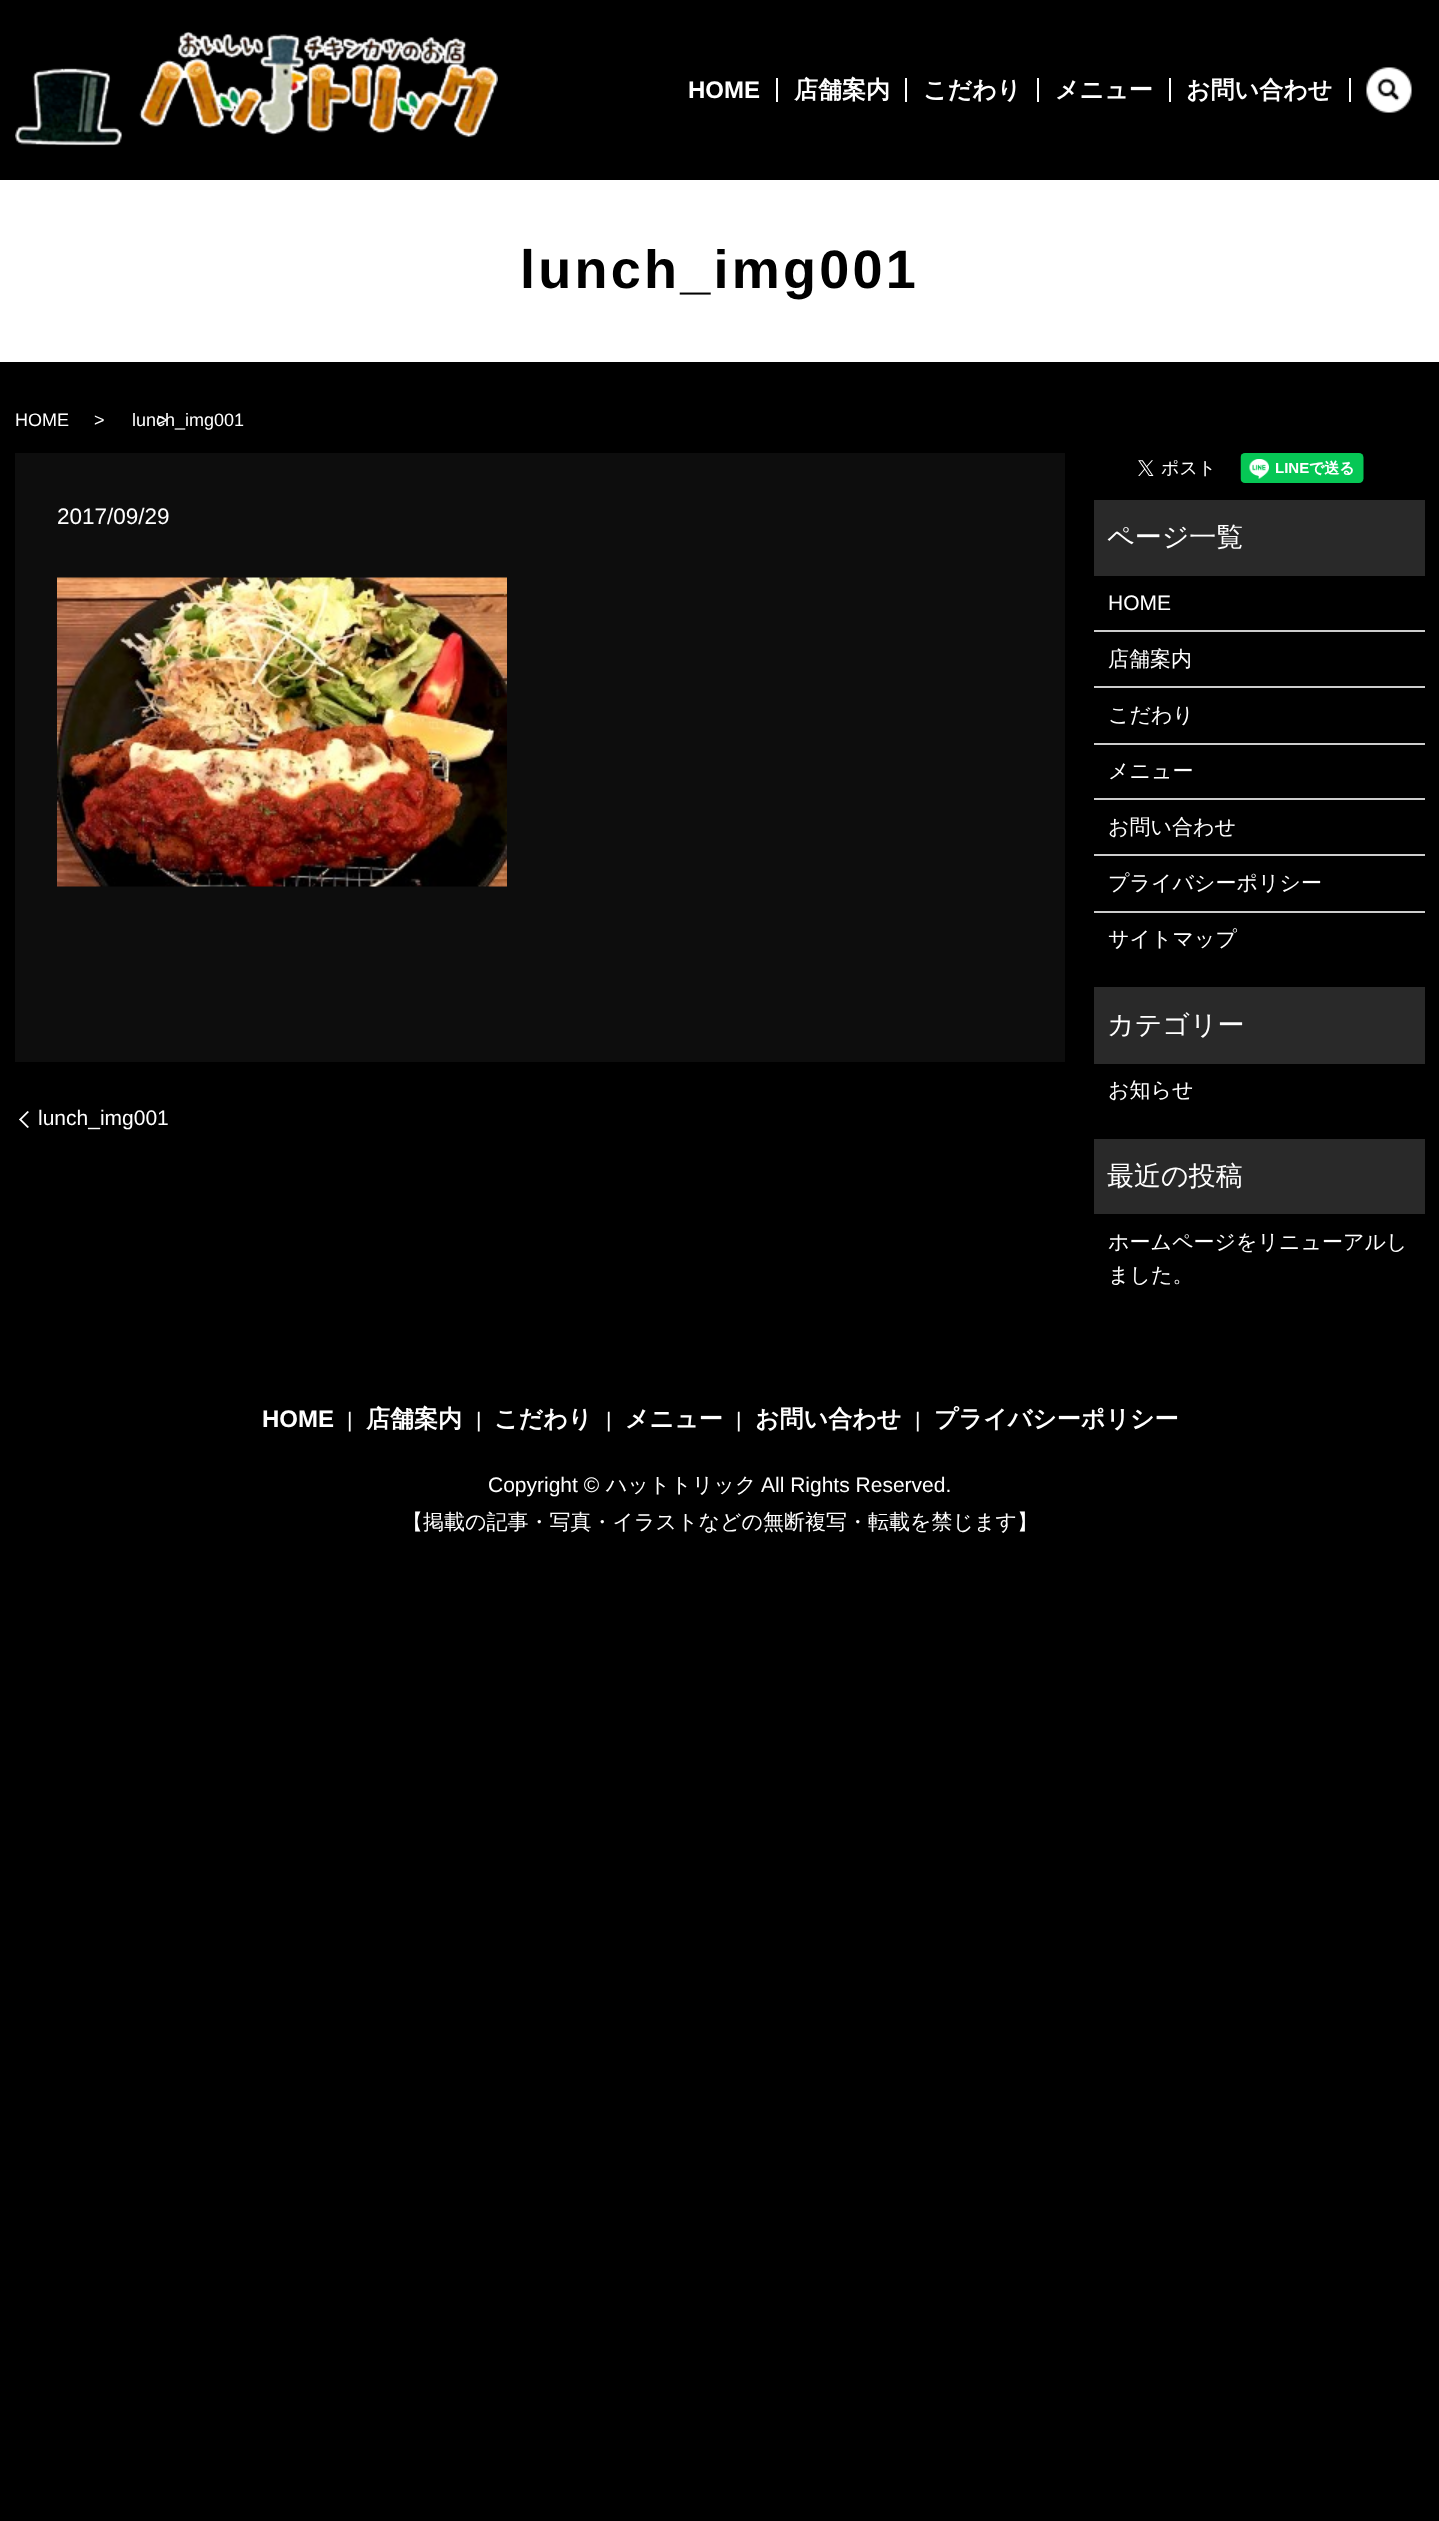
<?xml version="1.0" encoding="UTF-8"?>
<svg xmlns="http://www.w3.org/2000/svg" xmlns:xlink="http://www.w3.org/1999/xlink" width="1439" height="2521">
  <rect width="100%" height="100%" fill="#000000" />
  <image x="15" y="31" width="483" height="115" xlink:href="image1.png" />
  <rect x="776" y="78" width="2" height="24" fill="#ffffff" />
  <rect x="905" y="78" width="2" height="24" fill="#ffffff" />
  <rect x="1037" y="78" width="2" height="24" fill="#ffffff" />
  <rect x="1169" y="78" width="2" height="24" fill="#ffffff" />
  <rect x="1349" y="78" width="2" height="24" fill="#ffffff" />
  <image x="1366" y="67" width="46" height="46" xlink:href="image2.png" />
  <rect y="180" width="1439" height="182" fill="#ffffff" />
  <rect x="15" y="453" width="1050" height="609" fill="#0d0d0d" />
  <image x="57" y="577" width="450" height="310" xlink:href="image3.png" />
  <path d="M 19 1119.5 l 8.5 -8.5 l 1.5 1 l -8.5 8.5 z" fill="#ffffff" />
  <path d="M 27.5 1128 l -8.5 -8.5 l 1.5 -1 l 8.5 8.5 z" fill="#ffffff" />
  <image x="1138" y="460" width="74" height="17" xlink:href="image4.png" />
  <image x="1240" y="453" width="124" height="30" xlink:href="image5.png" />
  <rect x="1094" y="500" width="331" height="76" fill="#292929" />
  <rect x="1094" y="630" width="331" height="2" fill="#cccccc" />
  <rect x="1094" y="686" width="331" height="2" fill="#cccccc" />
  <rect x="1094" y="743" width="331" height="2" fill="#cccccc" />
  <rect x="1094" y="798" width="331" height="2" fill="#cccccc" />
  <rect x="1094" y="854" width="331" height="2" fill="#cccccc" />
  <rect x="1094" y="911" width="331" height="2" fill="#cccccc" />
  <rect x="1094" y="987" width="331" height="77" fill="#292929" />
  <rect x="1094" y="1139" width="331" height="75" fill="#292929" />
  <text x="688" y="98" style="font-family: Liberation Sans; font-size: 24px; font-weight: bold; fill: #ffffff">HOME</text>
  <text x="794" y="98" style="font-family: WenQuanYi Zen Hei; font-size: 24px; font-weight: bold; fill: #ffffff">店舗案内</text>
  <text x="923" y="98" style="font-family: WenQuanYi Zen Hei; font-size: 24px; font-weight: bold; fill: #ffffff">こだわり</text>
  <text x="1055" y="98" style="font-family: WenQuanYi Zen Hei; font-size: 24px; font-weight: bold; fill: #ffffff">メニュー</text>
  <text x="1186" y="98" style="font-family: WenQuanYi Zen Hei; font-size: 24px; font-weight: bold; fill: #ffffff">お問い合わせ</text>
  <text x="520" y="288" style="font-family: Liberation Sans; font-size: 54px; font-weight: bold; letter-spacing: 3.25px; fill: #000000">lunch_img001</text>
  <text x="15" y="426" style="font-family: Liberation Sans; font-size: 18px; fill: #ffffff">HOME</text>
  <text x="94" y="426" style="font-family: Liberation Sans; font-size: 18px; fill: #ffffff">&gt;</text>
  <text x="157" y="426" style="font-family: Liberation Sans; font-size: 18px; fill: #ffffff">&gt;</text>
  <text x="132" y="426" style="font-family: Liberation Sans; font-size: 18px; fill: #ffffff">lunch_img001</text>
  <text x="57" y="524" style="font-family: Liberation Sans; font-size: 22.5px; fill: #ffffff">2017/09/29</text>
  <text x="38" y="1125" style="font-family: Liberation Sans; font-size: 21px; fill: #ffffff">lunch_img001</text>
  <text x="1107" y="546" style="font-family: WenQuanYi Zen Hei; font-size: 27px; font-weight: 500; fill: #ffffff">ページ一覧</text>
  <text x="1108" y="610" style="font-family: Liberation Sans; font-size: 21px; fill: #ffffff">HOME</text>
  <text x="1108" y="666" style="font-family: WenQuanYi Zen Hei; font-size: 21px; font-weight: 500; fill: #ffffff">店舗案内</text>
  <text x="1108" y="722" style="font-family: WenQuanYi Zen Hei; font-size: 21px; font-weight: 500; fill: #ffffff">こだわり</text>
  <text x="1108" y="778" style="font-family: WenQuanYi Zen Hei; font-size: 21px; font-weight: 500; fill: #ffffff">メニュー</text>
  <text x="1108" y="834" style="font-family: WenQuanYi Zen Hei; font-size: 21px; font-weight: 500; fill: #ffffff">お問い合わせ</text>
  <text x="1108" y="890" style="font-family: WenQuanYi Zen Hei; font-size: 21px; font-weight: 500; fill: #ffffff">プライバシーポリシー</text>
  <text x="1108" y="946" style="font-family: WenQuanYi Zen Hei; font-size: 21px; font-weight: 500; fill: #ffffff">サイトマップ</text>
  <text x="1107" y="1034" style="font-family: WenQuanYi Zen Hei; font-size: 27px; font-weight: 500; fill: #ffffff">カテゴリー</text>
  <text x="1108" y="1097" style="font-family: WenQuanYi Zen Hei; font-size: 21px; font-weight: 500; fill: #ffffff">お知らせ</text>
  <text x="1107" y="1185" style="font-family: WenQuanYi Zen Hei; font-size: 27px; font-weight: 500; fill: #ffffff">最近の投稿</text>
  <text x="1108" y="1249" style="font-family: WenQuanYi Zen Hei; font-size: 21px; font-weight: 500; fill: #ffffff">ホームページをリニューアルし</text>
  <text x="1108" y="1282" style="font-family: WenQuanYi Zen Hei; font-size: 21px; font-weight: 500; fill: #ffffff">ました。</text>
  <text x="262" y="1427" style="font-family: Liberation Sans; font-size: 24px; font-weight: bold; fill: #ffffff">HOME</text>
  <text x="347" y="1427" style="font-family: Liberation Sans; font-size: 21px; fill: #ffffff">|</text>
  <text x="366" y="1427" style="font-family: WenQuanYi Zen Hei; font-size: 24px; font-weight: bold; fill: #ffffff">店舗案内</text>
  <text x="476" y="1427" style="font-family: Liberation Sans; font-size: 21px; fill: #ffffff">|</text>
  <text x="494" y="1427" style="font-family: WenQuanYi Zen Hei; font-size: 24px; font-weight: bold; fill: #ffffff">こだわり</text>
  <text x="606" y="1427" style="font-family: Liberation Sans; font-size: 21px; fill: #ffffff">|</text>
  <text x="625" y="1427" style="font-family: WenQuanYi Zen Hei; font-size: 24px; font-weight: bold; fill: #ffffff">メニュー</text>
  <text x="736" y="1427" style="font-family: Liberation Sans; font-size: 21px; fill: #ffffff">|</text>
  <text x="755" y="1427" style="font-family: WenQuanYi Zen Hei; font-size: 24px; font-weight: bold; fill: #ffffff">お問い合わせ</text>
  <text x="915" y="1427" style="font-family: Liberation Sans; font-size: 21px; fill: #ffffff">|</text>
  <text x="934" y="1427" style="font-family: WenQuanYi Zen Hei; font-size: 24px; font-weight: bold; fill: #ffffff">プライバシーポリシー</text>
  <text x="488" y="1492" style="font-family: Liberation Sans; font-size: 21px; fill: #ffffff">Copyright ©</text>
  <text x="606" y="1492" style="font-family: WenQuanYi Zen Hei; font-size: 21px; font-weight: 500; fill: #ffffff">ハットトリック</text>
  <text x="761" y="1492" style="font-family: Liberation Sans; font-size: 21px; fill: #ffffff">All Rights Reserved.</text>
  <text x="402" y="1529" style="font-family: WenQuanYi Zen Hei; font-size: 21px; font-weight: 500; fill: #ffffff">【掲載の記事・写真・イラストなどの無断複写・転載を禁じます】</text>
</svg>
